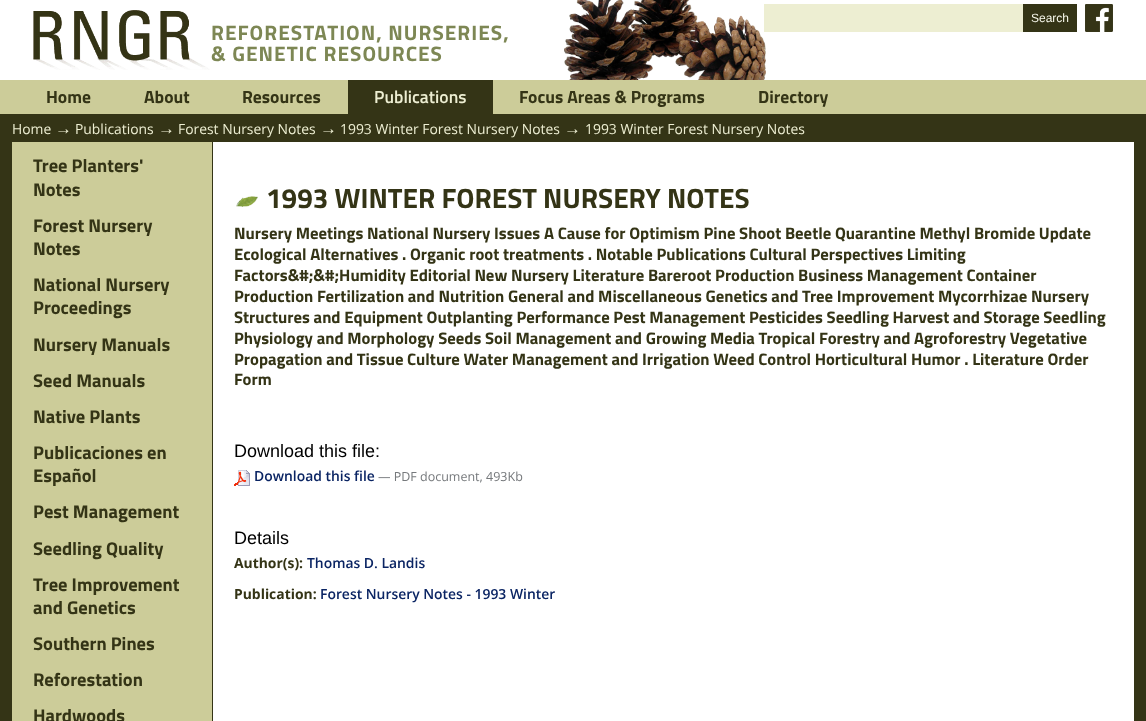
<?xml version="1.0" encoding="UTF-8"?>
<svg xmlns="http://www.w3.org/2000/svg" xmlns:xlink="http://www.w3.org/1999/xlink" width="1146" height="721">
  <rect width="100%" height="100%" fill="#343416" />
  <rect width="1146" height="80" fill="#ffffff" />
  <image x="564" y="0" width="202" height="80" xlink:href="image1.png" />
  <rect x="764" y="4" width="259" height="28" fill="#edeed2" />
  <rect x="1023" y="4" width="54" height="28" fill="#343416" />
  <image x="1085" y="4" width="28" height="28" xlink:href="image2.png" />
  <image x="33" y="10" width="177" height="60" xlink:href="image3.png" />
  <rect y="80" width="1146" height="34" fill="#cccc99" />
  <rect x="348" y="80" width="145" height="34" fill="#343416" />
  <rect x="12" y="142" width="200" height="579" fill="#cccc99" />
  <rect x="213" y="142" width="921" height="579" fill="#ffffff" />
  <image x="236" y="196" width="22" height="11" xlink:href="image4.png" />
  <image x="234" y="470" width="16" height="16" xlink:href="image5.png" />
  <text x="1031" y="22" style="font-family: Liberation Sans; font-size: 12px; fill: #f7f8eb">Search</text>
  <text x="211" y="40" style="font-family: Titillium Web; font-size: 20.9px; font-weight: bold; letter-spacing: 1px; fill: #7d8754">REFORESTATION, NURSERIES,</text>
  <text x="211" y="61" style="font-family: Titillium Web; font-size: 20.9px; font-weight: bold; letter-spacing: 1px; fill: #7d8754">&amp; GENETIC RESOURCES</text>
  <text x="46" y="103" style="font-family: Titillium Web; font-size: 17.6px; font-weight: bold; fill: #343416">Home</text>
  <text x="144" y="103" style="font-family: Titillium Web; font-size: 17.6px; font-weight: bold; fill: #343416">About</text>
  <text x="242" y="103" style="font-family: Titillium Web; font-size: 17.6px; font-weight: bold; fill: #343416">Resources</text>
  <text x="374" y="103" style="font-family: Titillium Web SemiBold; font-size: 17.6px; font-weight: 600; fill: #edeed2">Publications</text>
  <text x="519" y="103" style="font-family: Titillium Web; font-size: 17.6px; font-weight: bold; fill: #343416">Focus Areas &amp; Programs</text>
  <text x="758" y="103" style="font-family: Titillium Web; font-size: 17.6px; font-weight: bold; fill: #343416">Directory</text>
  <text x="12" y="134" style="font-family: Open Sans; font-size: 13.9px; fill: #edeed2">Home</text>
  <text x="55" y="134" style="font-family: Liberation Serif; font-size: 16.72px; fill: #edeed2">→</text>
  <text x="75" y="134" style="font-family: Open Sans; font-size: 13.9px; fill: #edeed2">Publications</text>
  <text x="158" y="134" style="font-family: Liberation Serif; font-size: 16.72px; fill: #edeed2">→</text>
  <text x="178" y="134" style="font-family: Open Sans; font-size: 13.9px; fill: #edeed2">Forest Nursery Notes</text>
  <text x="320" y="134" style="font-family: Liberation Serif; font-size: 16.72px; fill: #edeed2">→</text>
  <text x="340" y="134" style="font-family: Open Sans; font-size: 13.9px; fill: #edeed2">1993 Winter Forest Nursery Notes</text>
  <text x="564" y="134" style="font-family: Liberation Serif; font-size: 16.72px; fill: #edeed2">→</text>
  <text x="585" y="134" style="font-family: Open Sans; font-size: 13.9px; fill: #edeed2">1993 Winter Forest Nursery Notes</text>
  <text x="33" y="172" style="font-family: Titillium Web; font-size: 18.5px; font-weight: bold; fill: #343416">Tree Planters'</text>
  <text x="33" y="196" style="font-family: Titillium Web; font-size: 18.5px; font-weight: bold; fill: #343416">Notes</text>
  <text x="33" y="232" style="font-family: Titillium Web; font-size: 18.5px; font-weight: bold; fill: #343416">Forest Nursery</text>
  <text x="33" y="255" style="font-family: Titillium Web; font-size: 18.5px; font-weight: bold; fill: #343416">Notes</text>
  <text x="33" y="291" style="font-family: Titillium Web; font-size: 18.5px; font-weight: bold; fill: #343416">National Nursery</text>
  <text x="33" y="314" style="font-family: Titillium Web; font-size: 18.5px; font-weight: bold; fill: #343416">Proceedings</text>
  <text x="33" y="351" style="font-family: Titillium Web; font-size: 18.5px; font-weight: bold; fill: #343416">Nursery Manuals</text>
  <text x="33" y="387" style="font-family: Titillium Web; font-size: 18.5px; font-weight: bold; fill: #343416">Seed Manuals</text>
  <text x="33" y="423" style="font-family: Titillium Web; font-size: 18.5px; font-weight: bold; fill: #343416">Native Plants</text>
  <text x="33" y="459" style="font-family: Titillium Web; font-size: 18.5px; font-weight: bold; fill: #343416">Publicaciones en</text>
  <text x="33" y="482" style="font-family: Titillium Web; font-size: 18.5px; font-weight: bold; fill: #343416">Español</text>
  <text x="33" y="518" style="font-family: Titillium Web; font-size: 18.5px; font-weight: bold; fill: #343416">Pest Management</text>
  <text x="33" y="555" style="font-family: Titillium Web; font-size: 18.5px; font-weight: bold; fill: #343416">Seedling Quality</text>
  <text x="33" y="591" style="font-family: Titillium Web; font-size: 18.5px; font-weight: bold; fill: #343416">Tree Improvement</text>
  <text x="33" y="614" style="font-family: Titillium Web; font-size: 18.5px; font-weight: bold; fill: #343416">and Genetics</text>
  <text x="33" y="650" style="font-family: Titillium Web; font-size: 18.5px; font-weight: bold; fill: #343416">Southern Pines</text>
  <text x="33" y="686" style="font-family: Titillium Web; font-size: 18.5px; font-weight: bold; fill: #343416">Reforestation</text>
  <text x="33" y="722" style="font-family: Titillium Web; font-size: 18.5px; font-weight: bold; fill: #343416">Hardwoods</text>
  <text x="266" y="208" style="font-family: Titillium Web; font-size: 27.9px; font-weight: bold; fill: #343416">1993 WINTER FOREST NURSERY NOTES</text>
  <text x="234" y="239" style="font-family: Titillium Web; font-size: 16.72px; font-weight: bold; fill: #343416">Nursery Meetings National Nursery Issues A Cause for Optimism Pine Shoot Beetle Quarantine Methyl Bromide Update</text>
  <text x="234" y="260" style="font-family: Titillium Web; font-size: 16.72px; font-weight: bold; fill: #343416">Ecological Alternatives . Organic root treatments . Notable Publications Cultural Perspectives Limiting</text>
  <text x="234" y="281" style="font-family: Titillium Web; font-size: 16.72px; font-weight: bold; fill: #343416">Factors&amp;#;&amp;#;Humidity Editorial New Nursery Literature Bareroot Production Business Management Container</text>
  <text x="234" y="302" style="font-family: Titillium Web; font-size: 16.72px; font-weight: bold; fill: #343416">Production Fertilization and Nutrition General and Miscellaneous Genetics and Tree Improvement Mycorrhizae Nursery</text>
  <text x="234" y="323" style="font-family: Titillium Web; font-size: 16.72px; font-weight: bold; fill: #343416">Structures and Equipment Outplanting Performance Pest Management Pesticides Seedling Harvest and Storage Seedling</text>
  <text x="234" y="344" style="font-family: Titillium Web; font-size: 16.72px; font-weight: bold; fill: #343416">Physiology and Morphology Seeds Soil Management and Growing Media Tropical Forestry and Agroforestry Vegetative</text>
  <text x="234" y="365" style="font-family: Titillium Web; font-size: 16.72px; font-weight: bold; fill: #343416">Propagation and Tissue Culture Water Management and Irrigation Weed Control Horticultural Humor . Literature Order</text>
  <text x="234" y="385" style="font-family: Titillium Web; font-size: 16.72px; font-weight: bold; fill: #343416">Form</text>
  <text x="234" y="457" style="font-family: Liberation Sans; font-size: 18px; fill: #000000">Download this file:</text>
  <text x="254" y="481" style="font-family: Open Sans; font-size: 13.9px; font-weight: 600; fill: #0a2463">Download this file</text>
  <text x="378" y="481" style="font-family: Open Sans; font-size: 12.5px; fill: #76797c">— PDF document, 493Kb</text>
  <text x="234" y="544" style="font-family: Liberation Sans; font-size: 18px; fill: #000000">Details</text>
  <text x="234" y="568" style="font-family: Open Sans; font-size: 13.9px; font-weight: bold; fill: #343416">Author(s):</text>
  <text x="307" y="568" style="font-family: Open Sans; font-size: 13.9px; font-weight: 600; fill: #0a2463">Thomas D. Landis</text>
  <text x="234" y="599" style="font-family: Open Sans; font-size: 13.9px; font-weight: bold; fill: #343416">Publication:</text>
  <text x="320" y="599" style="font-family: Open Sans; font-size: 13.9px; font-weight: 600; fill: #0a2463">Forest Nursery Notes - 1993 Winter</text>
</svg>
